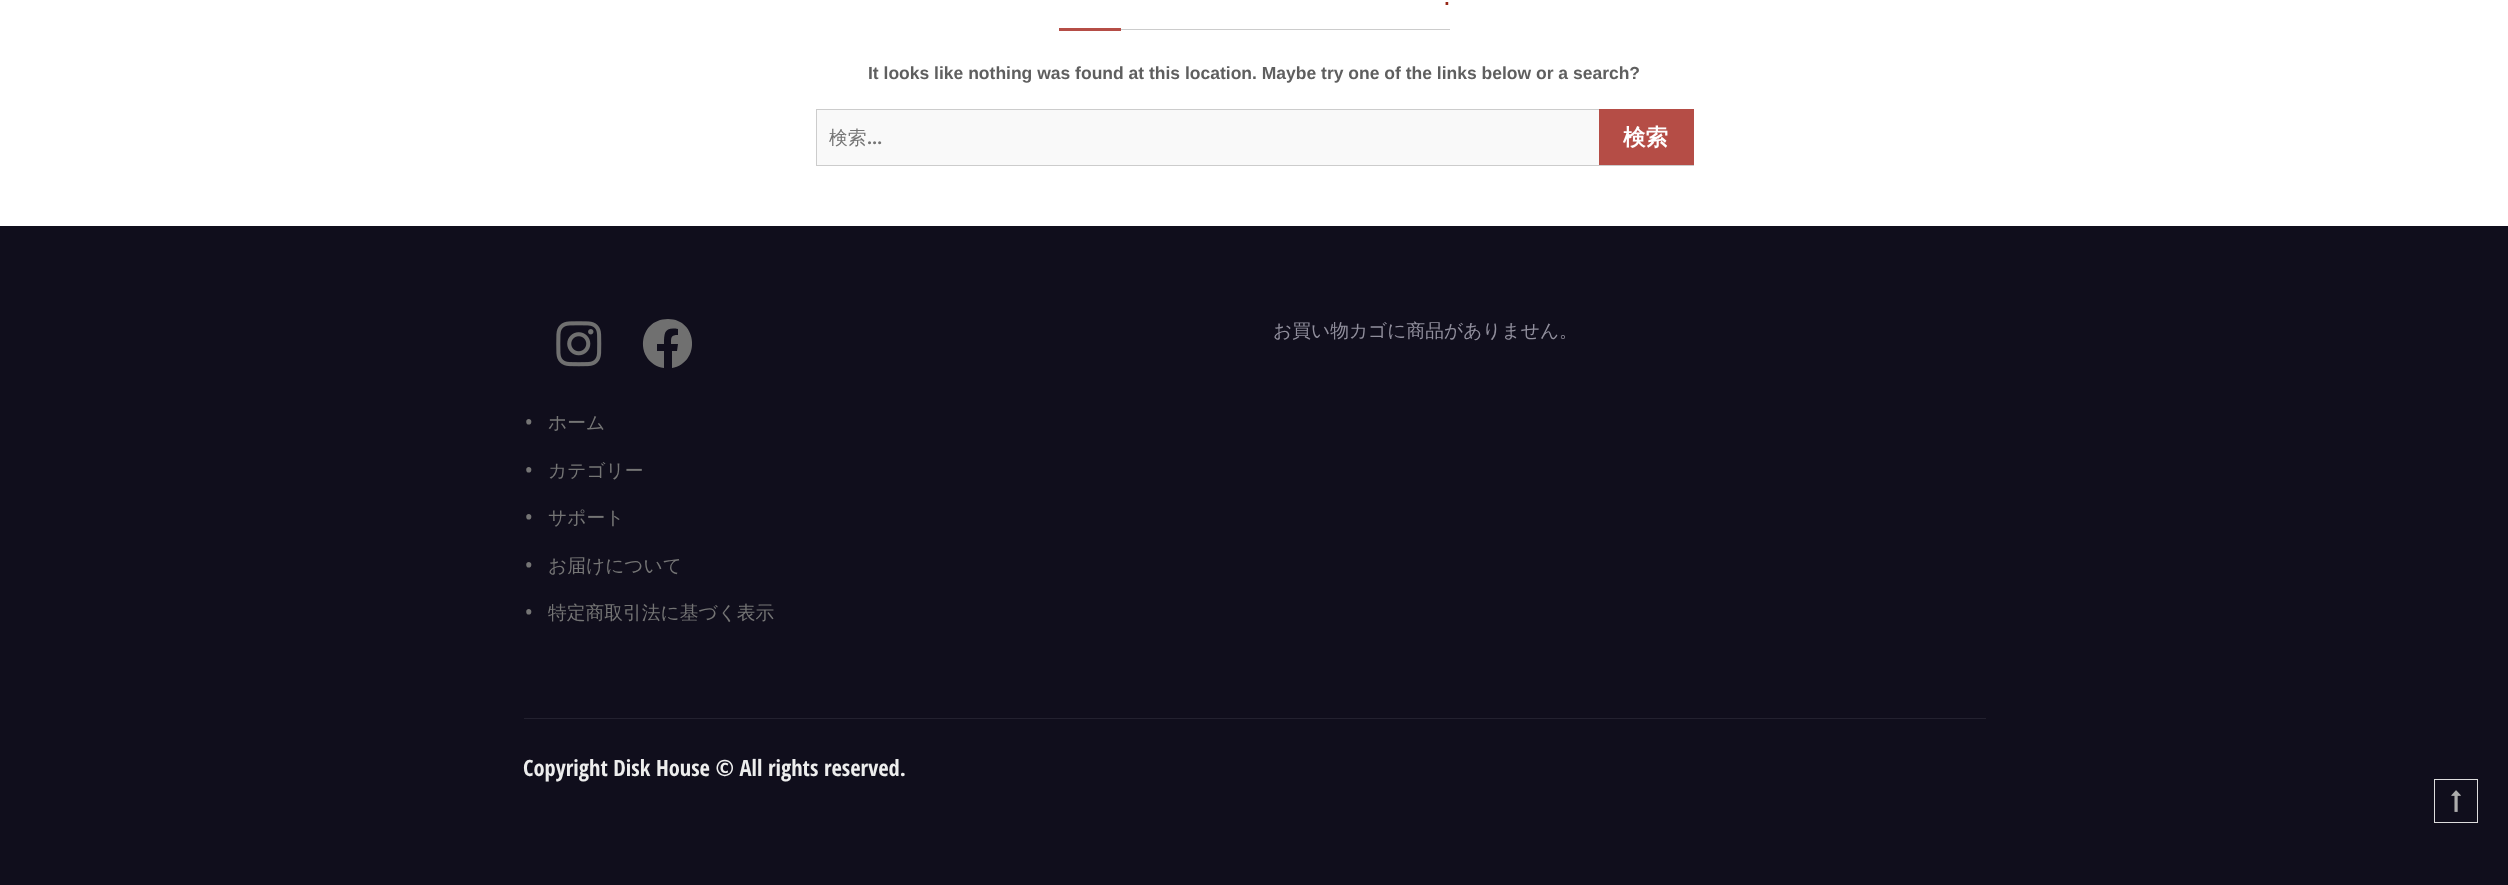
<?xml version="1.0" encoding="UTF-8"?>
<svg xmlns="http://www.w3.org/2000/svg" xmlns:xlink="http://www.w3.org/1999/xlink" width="2508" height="885">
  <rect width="100%" height="100%" fill="#ffffff" />
  <rect x="1121" y="29" width="329" height="1" fill="#cccccc" />
  <rect x="1059" y="28" width="62" height="3" fill="#b54d46" />
  <rect x="817" y="110" width="782" height="55" fill="#f9f9f9" />
  <rect x="816.5" y="109.5" width="877" height="56" fill="none" stroke="#cccccc" />
  <rect x="1599" y="109" width="95" height="56" fill="#b54d46" />
  <rect y="226" width="2508" height="659" fill="#100e1c" />
  <image x="556" y="321" width="46" height="46" xlink:href="image1.png" />
  <path d="M 668 319 c -31 0 -34 44 -4 49 v -17 h -7 v -7 h 7 c 0 -12 1 -17 14 -15 v 6 c -7 0 -7 2 -7 9 h 7 l -1 7 h -5 v 17 c 29 -5 26 -49 -4 -49 z" fill="#707070" />
  <rect x="524" y="718" width="1462" height="1" fill="#23212f" />
  <rect x="2434.5" y="779.5" width="43" height="43" fill="none" stroke="#dddddd" />
  <image x="2451" y="790" width="10" height="22" xlink:href="image2.png" />
  <text x="1443" y="5" style="font-family: Liberation Sans; font-size: 28px; fill: #962716">.</text>
  <text x="868" y="79" style="font-family: Liberation Sans; font-size: 17.5px; font-weight: bold; fill: #5f5f5f">It looks like nothing was found at this location. Maybe try one of the links below or a search?</text>
  <text x="829" y="144" style="font-family: WenQuanYi Zen Hei; font-size: 18.75px; font-weight: 500; fill: #757575">検索</text>
  <text x="867" y="144" style="font-family: Open Sans Condensed; font-size: 18.75px; font-weight: bold; fill: #757575">…</text>
  <text x="1623" y="145" style="font-family: WenQuanYi Zen Hei; font-size: 22.5px; font-weight: bold; fill: #ffffff">検索</text>
  <text x="1273" y="337" style="font-family: WenQuanYi Zen Hei; font-size: 18.75px; font-weight: 500; fill: #918f9d">お買い物カゴに商品がありません。</text>
  <text x="523" y="424" style="font-family: Open Sans; font-size: 44px; fill: #757575">.</text>
  <text x="548" y="429" style="font-family: WenQuanYi Zen Hei; font-size: 18.75px; font-weight: 500; fill: #757575">ホーム</text>
  <text x="523" y="472" style="font-family: Open Sans; font-size: 44px; fill: #757575">.</text>
  <text x="548" y="477" style="font-family: WenQuanYi Zen Hei; font-size: 18.75px; font-weight: 500; fill: #757575">カテゴリー</text>
  <text x="523" y="519" style="font-family: Open Sans; font-size: 44px; fill: #757575">.</text>
  <text x="548" y="524" style="font-family: WenQuanYi Zen Hei; font-size: 18.75px; font-weight: 500; fill: #757575">サポート</text>
  <text x="523" y="567" style="font-family: Open Sans; font-size: 44px; fill: #757575">.</text>
  <text x="548" y="572" style="font-family: WenQuanYi Zen Hei; font-size: 18.75px; font-weight: 500; fill: #757575">お届けについて</text>
  <text x="523" y="614" style="font-family: Open Sans; font-size: 44px; fill: #757575">.</text>
  <text x="548" y="619" style="font-family: WenQuanYi Zen Hei; font-size: 18.75px; font-weight: 500; fill: #757575">特定商取引法に基づく表示</text>
  <text x="523" y="776" style="font-family: Open Sans Condensed; font-size: 22.5px; font-weight: bold; fill: #ededed">Copyright Disk House © All rights reserved.</text>
</svg>
